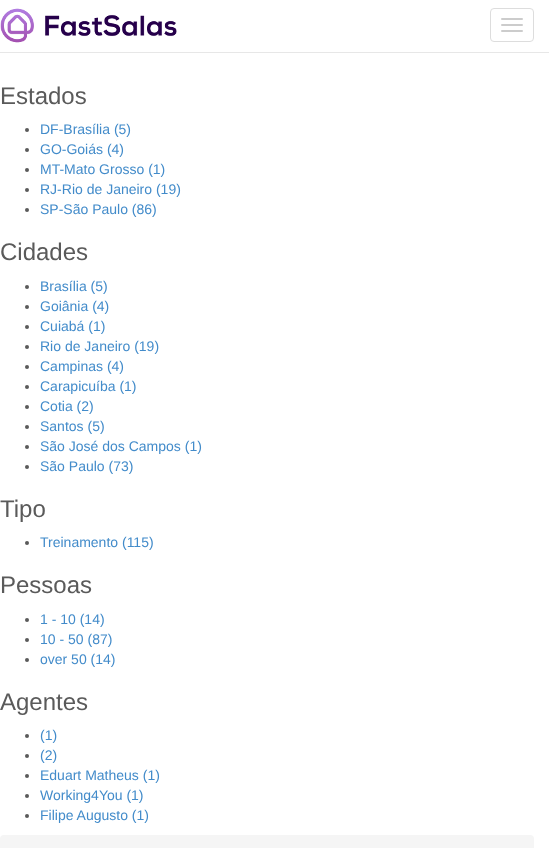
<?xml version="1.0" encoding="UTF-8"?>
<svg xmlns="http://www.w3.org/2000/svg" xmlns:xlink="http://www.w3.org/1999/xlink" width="549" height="848">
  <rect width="100%" height="100%" fill="#ffffff" />
  <rect y="52" width="549" height="1" fill="#e7e7e7" />
  <image x="0" y="8" width="177" height="35" xlink:href="image1.png" />
  <rect x="490.5" y="8.5" width="43" height="33" rx="3.5" fill="none" stroke="#dddddd" />
  <rect x="501" y="18" width="22" height="2" rx="1" fill="#cccccc" />
  <rect x="501" y="24" width="22" height="2" rx="1" fill="#cccccc" />
  <rect x="501" y="30" width="22" height="2" rx="1" fill="#cccccc" />
  <circle cx="27" cy="130" r="2" fill="#5a5a5a" />
  <circle cx="27" cy="150" r="2" fill="#5a5a5a" />
  <circle cx="27" cy="170" r="2" fill="#5a5a5a" />
  <circle cx="27" cy="190" r="2" fill="#5a5a5a" />
  <circle cx="27" cy="210" r="2" fill="#5a5a5a" />
  <circle cx="27" cy="287" r="2" fill="#5a5a5a" />
  <circle cx="27" cy="307" r="2" fill="#5a5a5a" />
  <circle cx="27" cy="327" r="2" fill="#5a5a5a" />
  <circle cx="27" cy="347" r="2" fill="#5a5a5a" />
  <circle cx="27" cy="367" r="2" fill="#5a5a5a" />
  <circle cx="27" cy="387" r="2" fill="#5a5a5a" />
  <circle cx="27" cy="407" r="2" fill="#5a5a5a" />
  <circle cx="27" cy="427" r="2" fill="#5a5a5a" />
  <circle cx="27" cy="447" r="2" fill="#5a5a5a" />
  <circle cx="27" cy="467" r="2" fill="#5a5a5a" />
  <circle cx="27" cy="543" r="2" fill="#5a5a5a" />
  <circle cx="27" cy="620" r="2" fill="#5a5a5a" />
  <circle cx="27" cy="640" r="2" fill="#5a5a5a" />
  <circle cx="27" cy="660" r="2" fill="#5a5a5a" />
  <circle cx="27" cy="736" r="2" fill="#5a5a5a" />
  <circle cx="27" cy="756" r="2" fill="#5a5a5a" />
  <circle cx="27" cy="776" r="2" fill="#5a5a5a" />
  <circle cx="27" cy="796" r="2" fill="#5a5a5a" />
  <circle cx="27" cy="816" r="2" fill="#5a5a5a" />
  <rect y="835" width="534" height="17" rx="4" fill="#f5f5f5" />
  <text x="0" y="104" style="font-family: Liberation Sans; font-size: 24px; fill: #5a5a5a">Estados</text>
  <text x="40" y="134" style="font-family: Liberation Sans; font-size: 14px; fill: #428bca">DF-Brasília (5)</text>
  <text x="40" y="154" style="font-family: Liberation Sans; font-size: 14px; fill: #428bca">GO-Goiás (4)</text>
  <text x="40" y="174" style="font-family: Liberation Sans; font-size: 14px; fill: #428bca">MT-Mato Grosso (1)</text>
  <text x="40" y="194" style="font-family: Liberation Sans; font-size: 14px; fill: #428bca">RJ-Rio de Janeiro (19)</text>
  <text x="40" y="214" style="font-family: Liberation Sans; font-size: 14px; fill: #428bca">SP-São Paulo (86)</text>
  <text x="0" y="260" style="font-family: Liberation Sans; font-size: 24px; fill: #5a5a5a">Cidades</text>
  <text x="40" y="291" style="font-family: Liberation Sans; font-size: 14px; fill: #428bca">Brasília (5)</text>
  <text x="40" y="311" style="font-family: Liberation Sans; font-size: 14px; fill: #428bca">Goiânia (4)</text>
  <text x="40" y="331" style="font-family: Liberation Sans; font-size: 14px; fill: #428bca">Cuiabá (1)</text>
  <text x="40" y="351" style="font-family: Liberation Sans; font-size: 14px; fill: #428bca">Rio de Janeiro (19)</text>
  <text x="40" y="371" style="font-family: Liberation Sans; font-size: 14px; fill: #428bca">Campinas (4)</text>
  <text x="40" y="391" style="font-family: Liberation Sans; font-size: 14px; fill: #428bca">Carapicuíba (1)</text>
  <text x="40" y="411" style="font-family: Liberation Sans; font-size: 14px; fill: #428bca">Cotia (2)</text>
  <text x="40" y="431" style="font-family: Liberation Sans; font-size: 14px; fill: #428bca">Santos (5)</text>
  <text x="40" y="451" style="font-family: Liberation Sans; font-size: 14px; fill: #428bca">São José dos Campos (1)</text>
  <text x="40" y="471" style="font-family: Liberation Sans; font-size: 14px; fill: #428bca">São Paulo (73)</text>
  <text x="0" y="517" style="font-family: Liberation Sans; font-size: 24px; fill: #5a5a5a">Tipo</text>
  <text x="40" y="547" style="font-family: Liberation Sans; font-size: 14px; fill: #428bca">Treinamento (115)</text>
  <text x="0" y="593" style="font-family: Liberation Sans; font-size: 24px; fill: #5a5a5a">Pessoas</text>
  <text x="40" y="624" style="font-family: Liberation Sans; font-size: 14px; fill: #428bca">1 - 10 (14)</text>
  <text x="40" y="644" style="font-family: Liberation Sans; font-size: 14px; fill: #428bca">10 - 50 (87)</text>
  <text x="40" y="664" style="font-family: Liberation Sans; font-size: 14px; fill: #428bca">over 50 (14)</text>
  <text x="0" y="710" style="font-family: Liberation Sans; font-size: 24px; fill: #5a5a5a">Agentes</text>
  <text x="40" y="740" style="font-family: Liberation Sans; font-size: 14px; fill: #428bca">(1)</text>
  <text x="40" y="760" style="font-family: Liberation Sans; font-size: 14px; fill: #428bca">(2)</text>
  <text x="40" y="780" style="font-family: Liberation Sans; font-size: 14px; fill: #428bca">Eduart Matheus (1)</text>
  <text x="40" y="800" style="font-family: Liberation Sans; font-size: 14px; fill: #428bca">Working4You (1)</text>
  <text x="40" y="820" style="font-family: Liberation Sans; font-size: 14px; fill: #428bca">Filipe Augusto (1)</text>
</svg>
